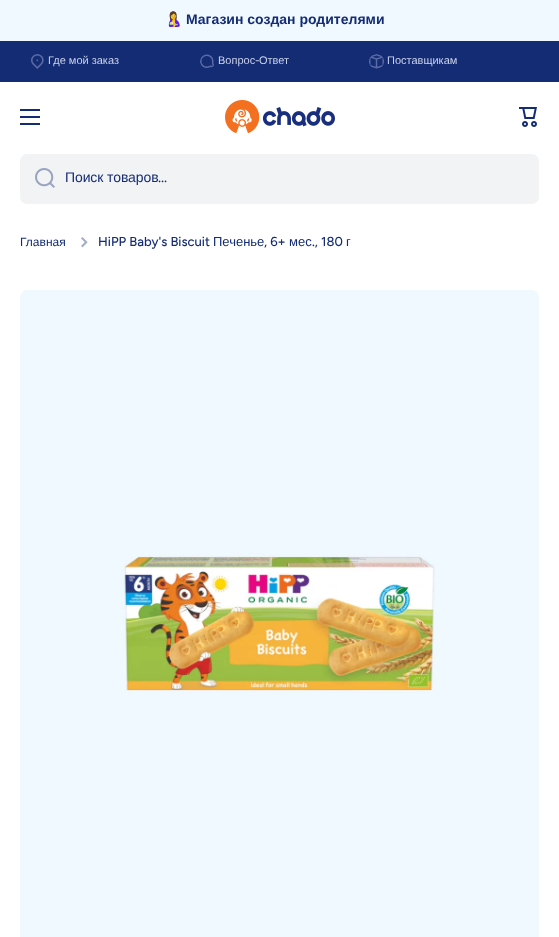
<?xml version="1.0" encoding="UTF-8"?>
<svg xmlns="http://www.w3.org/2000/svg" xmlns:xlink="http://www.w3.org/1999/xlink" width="559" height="937">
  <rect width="100%" height="100%" fill="#ffffff" />
  <rect width="559" height="41" fill="#f0f9ff" />
  <rect y="41" width="559" height="41" fill="#142c73" />
  <image x="31" y="54" width="13" height="15" xlink:href="image1.png" />
  <image x="200" y="54" width="14" height="14" xlink:href="image2.png" />
  <image x="369" y="54" width="15" height="15" xlink:href="image3.png" />
  <rect x="20" y="109" width="20" height="2" fill="#142c73" />
  <rect x="20" y="116" width="20" height="2" fill="#142c73" />
  <rect x="20" y="123" width="20" height="2" fill="#142c73" />
  <image x="225" y="100" width="110" height="33" xlink:href="image4.png" />
  <image x="519" y="107" width="18" height="20" xlink:href="image5.png" />
  <rect x="20" y="154" width="519" height="50" rx="7" fill="#f2f3f5" />
  <image x="35" y="168" width="20" height="20" xlink:href="image6.png" />
  <image x="81" y="237" width="7" height="11" xlink:href="image7.png" />
  <image x="20" y="290" width="519" height="647" xlink:href="image8.png" />
  <text x="165" y="24" style="font-family: Noto Color Emoji; font-size: 14px; font-weight: bold; fill: #142c73">🤱</text>
  <text x="186" y="24" style="font-family: Liberation Sans; font-size: 14px; font-weight: bold; fill: #142c73">Магазин создан родителями</text>
  <text x="48" y="64" style="font-family: Liberation Sans; font-size: 11px; fill: #cbd2ed">Где мой заказ</text>
  <text x="218" y="64" style="font-family: Liberation Sans; font-size: 11px; fill: #cbd2ed">Вопрос</text>
  <text x="255" y="64" style="font-family: Figtree; font-size: 11px; font-weight: 500; fill: #cbd2ed">-</text>
  <text x="259" y="64" style="font-family: Liberation Sans; font-size: 11px; fill: #cbd2ed">Ответ</text>
  <text x="387" y="64" style="font-family: Liberation Sans; font-size: 11px; fill: #cbd2ed">Поставщикам</text>
  <text x="65" y="182" style="font-family: Liberation Sans; font-size: 14px; letter-spacing: -0.1px; fill: #142c73">Поиск товаров</text>
  <text x="158" y="182" style="font-family: Figtree; font-size: 14px; font-weight: 500; letter-spacing: -0.1px; fill: #142c73">...</text>
  <text x="20" y="246" style="font-family: Liberation Sans; font-size: 12px; fill: #142c73">Главная</text>
  <text x="98" y="246" style="font-family: Figtree; font-size: 13px; font-weight: 500; fill: #142c73">HiPP Baby's Biscuit</text>
  <text x="213" y="246" style="font-family: Liberation Sans; font-size: 13px; fill: #142c73">Печенье</text>
  <text x="264" y="246" style="font-family: Figtree; font-size: 13px; font-weight: 500; fill: #142c73">, 6+</text>
  <text x="289" y="246" style="font-family: Liberation Sans; font-size: 13px; fill: #142c73">мес</text>
  <text x="312" y="246" style="font-family: Figtree; font-size: 13px; font-weight: 500; fill: #142c73">., 180</text>
  <text x="346" y="246" style="font-family: Liberation Sans; font-size: 13px; fill: #142c73">г</text>
</svg>
